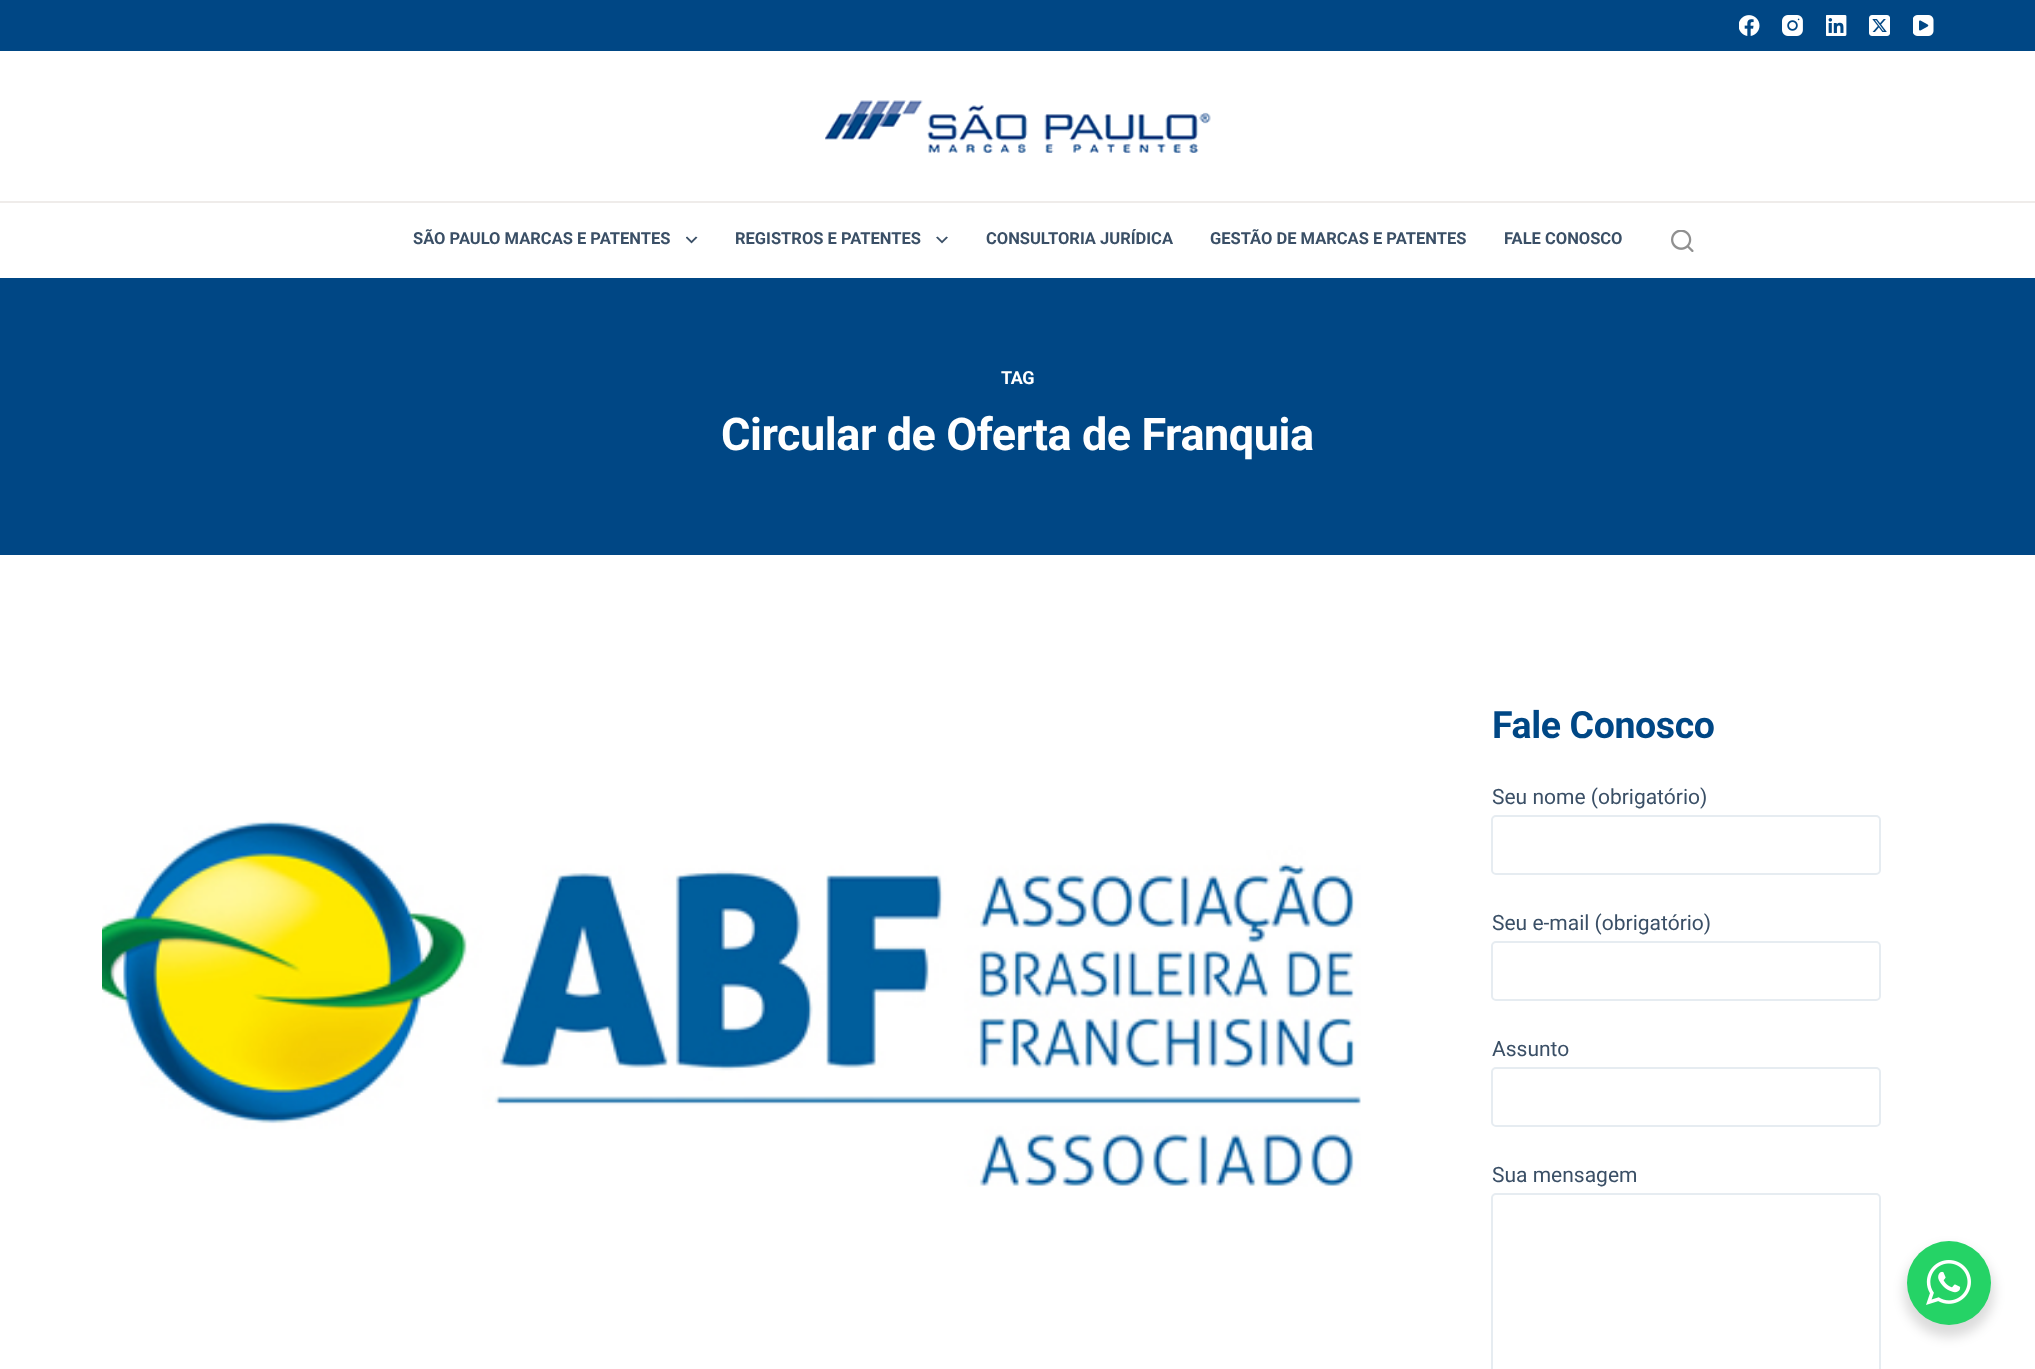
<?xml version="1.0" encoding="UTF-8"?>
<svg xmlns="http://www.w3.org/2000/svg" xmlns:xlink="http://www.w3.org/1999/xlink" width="2035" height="1369">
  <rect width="100%" height="100%" fill="#ffffff" />
  <rect width="2035" height="51" fill="#004785" />
  <image x="1739" y="15" width="21" height="21" xlink:href="image1.png" />
  <image x="1782" y="15" width="21" height="21" xlink:href="image2.png" />
  <image x="1826" y="15" width="21" height="21" xlink:href="image3.png" />
  <image x="1869" y="15" width="21" height="21" xlink:href="image4.png" />
  <image x="1913" y="15" width="21" height="21" xlink:href="image5.png" />
  <rect y="201" width="2035" height="2" fill="#efecea" />
  <image x="825" y="100" width="386" height="53" xlink:href="image6.png" />
  <image x="686" y="236" width="12" height="8" xlink:href="image7.png" />
  <image x="936" y="236" width="12" height="8" xlink:href="image8.png" />
  <image x="1671" y="230" width="23" height="22" xlink:href="image9.png" />
  <rect y="278" width="2035" height="277" fill="#004785" />
  <image x="102" y="820" width="1259" height="367" xlink:href="image10.png" />
  <rect x="1492" y="816" width="388" height="58" rx="4" fill="none" stroke="#e6ecf1" stroke-width="2" />
  <rect x="1492" y="942" width="388" height="58" rx="4" fill="none" stroke="#e6ecf1" stroke-width="2" />
  <rect x="1492" y="1068" width="388" height="58" rx="4" fill="none" stroke="#e6ecf1" stroke-width="2" />
  <rect x="1492" y="1194" width="388" height="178" rx="4" fill="none" stroke="#e6ecf1" stroke-width="2" />
  <rect x="1904" y="1247" width="90" height="90" rx="45" fill="#000000" fill-opacity="0.14" filter="blur(6px)" />
  <circle cx="1949" cy="1283" r="42" fill="#25d366" />
  <image x="1926" y="1260" width="45" height="45" xlink:href="image11.png" />
  <text x="413" y="244" style="font-family: Roboto; font-size: 16.5px; font-weight: bold; fill: #3a4f66">SÃO PAULO MARCAS E PATENTES</text>
  <text x="735" y="244" style="font-family: Roboto; font-size: 16.5px; font-weight: bold; fill: #3a4f66">REGISTROS E PATENTES</text>
  <text x="986" y="244" style="font-family: Roboto; font-size: 16.5px; font-weight: bold; fill: #3a4f66">CONSULTORIA JURÍDICA</text>
  <text x="1210" y="244" style="font-family: Roboto; font-size: 16.5px; font-weight: bold; fill: #3a4f66">GESTÃO DE MARCAS E PATENTES</text>
  <text x="1504" y="244" style="font-family: Roboto; font-size: 16.5px; font-weight: bold; fill: #3a4f66">FALE CONOSCO</text>
  <text x="1001" y="384" style="font-family: Roboto; font-size: 18px; font-weight: bold; letter-spacing: -0.45px; fill: #ffffff">TAG</text>
  <text x="721" y="450" style="font-family: Roboto; font-size: 45px; font-weight: bold; letter-spacing: -0.45px; fill: #ffffff">Circular de Oferta de Franquia</text>
  <text x="1492" y="738" style="font-family: Roboto; font-size: 37.5px; font-weight: bold; letter-spacing: -0.4px; fill: #004785">Fale Conosco</text>
  <text x="1492" y="804" style="font-family: Roboto; font-size: 21px; fill: #3a4f66">Seu nome (obrigatório)</text>
  <text x="1492" y="930" style="font-family: Roboto; font-size: 21px; fill: #3a4f66">Seu e-mail (obrigatório)</text>
  <text x="1492" y="1056" style="font-family: Roboto; font-size: 21px; fill: #3a4f66">Assunto</text>
  <text x="1492" y="1182" style="font-family: Roboto; font-size: 21px; fill: #3a4f66">Sua mensagem</text>
</svg>
